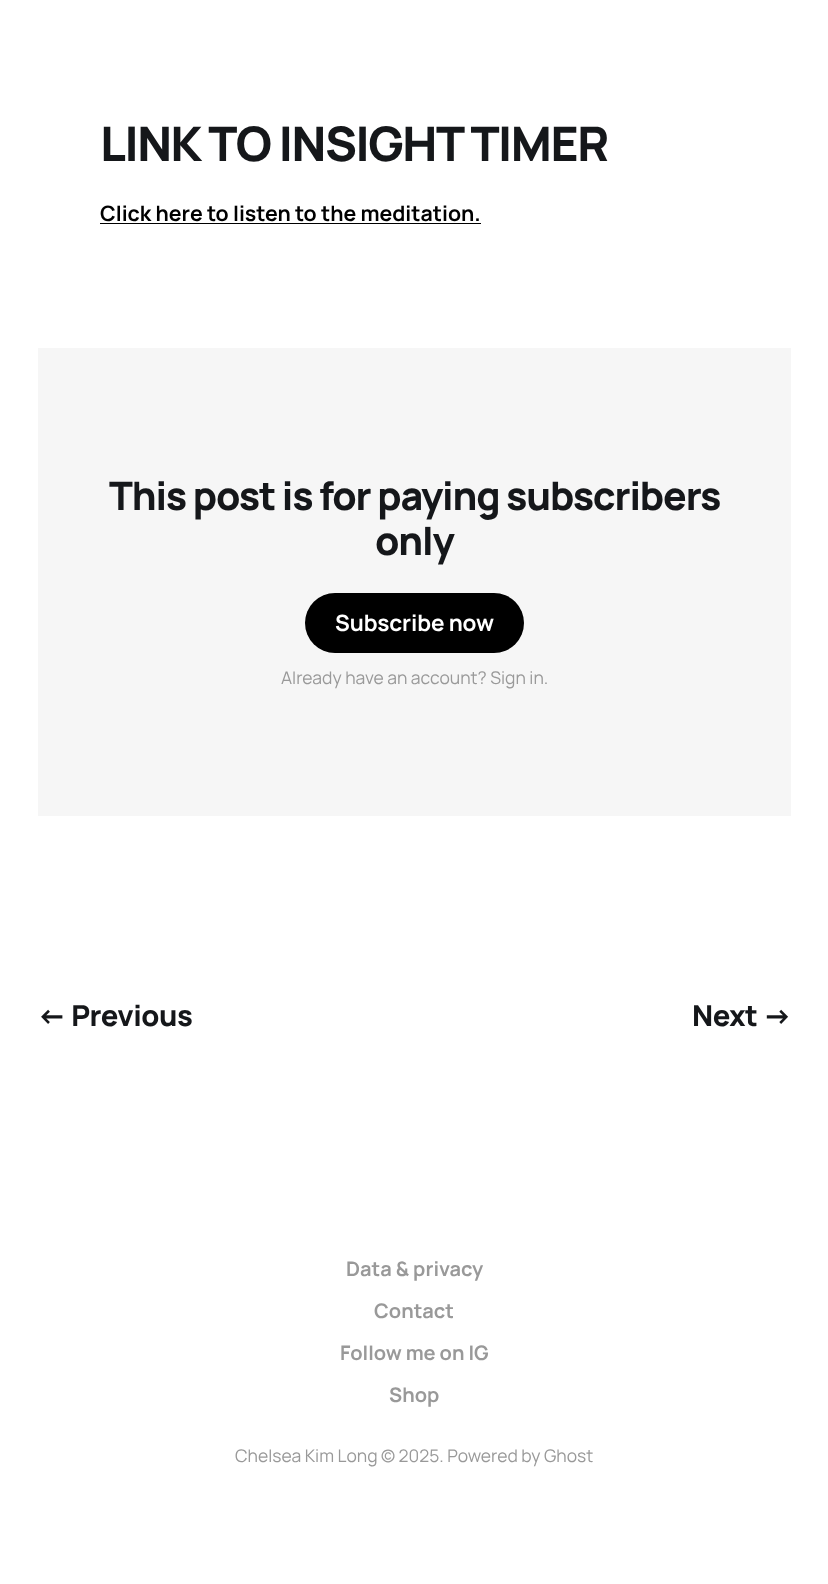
<?xml version="1.0" encoding="UTF-8"?>
<svg xmlns="http://www.w3.org/2000/svg" xmlns:xlink="http://www.w3.org/1999/xlink" width="828" height="1584">
  <rect width="100%" height="100%" fill="#ffffff" />
  <rect x="100" y="223" width="381" height="1" fill="#000000" />
  <rect x="38" y="348" width="753" height="468" fill="#f6f6f6" />
  <rect x="305" y="593" width="219" height="60" rx="30" fill="#000000" />
  <text x="100" y="161" style="font-family: Manrope; font-size: 47.75px; font-weight: 800; letter-spacing: -1.4px; fill: #15171a">LINK TO INSIGHT TIMER</text>
  <text x="100" y="221" style="font-family: Manrope; font-size: 21.25px; font-weight: bold; fill: #000000">Click here to listen to the meditation.</text>
  <text x="109" y="510" style="font-family: Manrope; font-size: 39.1px; font-weight: 800; letter-spacing: -1.15px; fill: #15171a">This post is for paying subscribers</text>
  <text x="375" y="555" style="font-family: Manrope; font-size: 39.1px; font-weight: 800; letter-spacing: -1.15px; fill: #15171a">only</text>
  <text x="335" y="631" style="font-family: Manrope; font-size: 22.5px; font-weight: bold; letter-spacing: -0.1px; fill: #ffffff">Subscribe now</text>
  <text x="281" y="684" style="font-family: Manrope; font-size: 17.5px; fill: #999999">Already have an account? Sign in.</text>
  <text x="37" y="1026" style="font-family: Manrope; font-size: 29px; font-weight: 800; letter-spacing: -0.5px; fill: #15171a">← Previous</text>
  <text x="692" y="1026" style="font-family: Manrope; font-size: 29px; font-weight: 800; letter-spacing: -0.5px; fill: #15171a">Next →</text>
  <text x="346" y="1276" style="font-family: Manrope; font-size: 20px; font-weight: bold; fill: #999999">Data &amp; privacy</text>
  <text x="374" y="1318" style="font-family: Manrope; font-size: 20px; font-weight: bold; fill: #999999">Contact</text>
  <text x="340" y="1360" style="font-family: Manrope; font-size: 20px; font-weight: bold; fill: #999999">Follow me on IG</text>
  <text x="389" y="1402" style="font-family: Manrope; font-size: 20px; font-weight: bold; fill: #999999">Shop</text>
  <text x="235" y="1462" style="font-family: Manrope; font-size: 17.5px; fill: #999999">Chelsea Kim Long © 2025. Powered by Ghost</text>
</svg>
